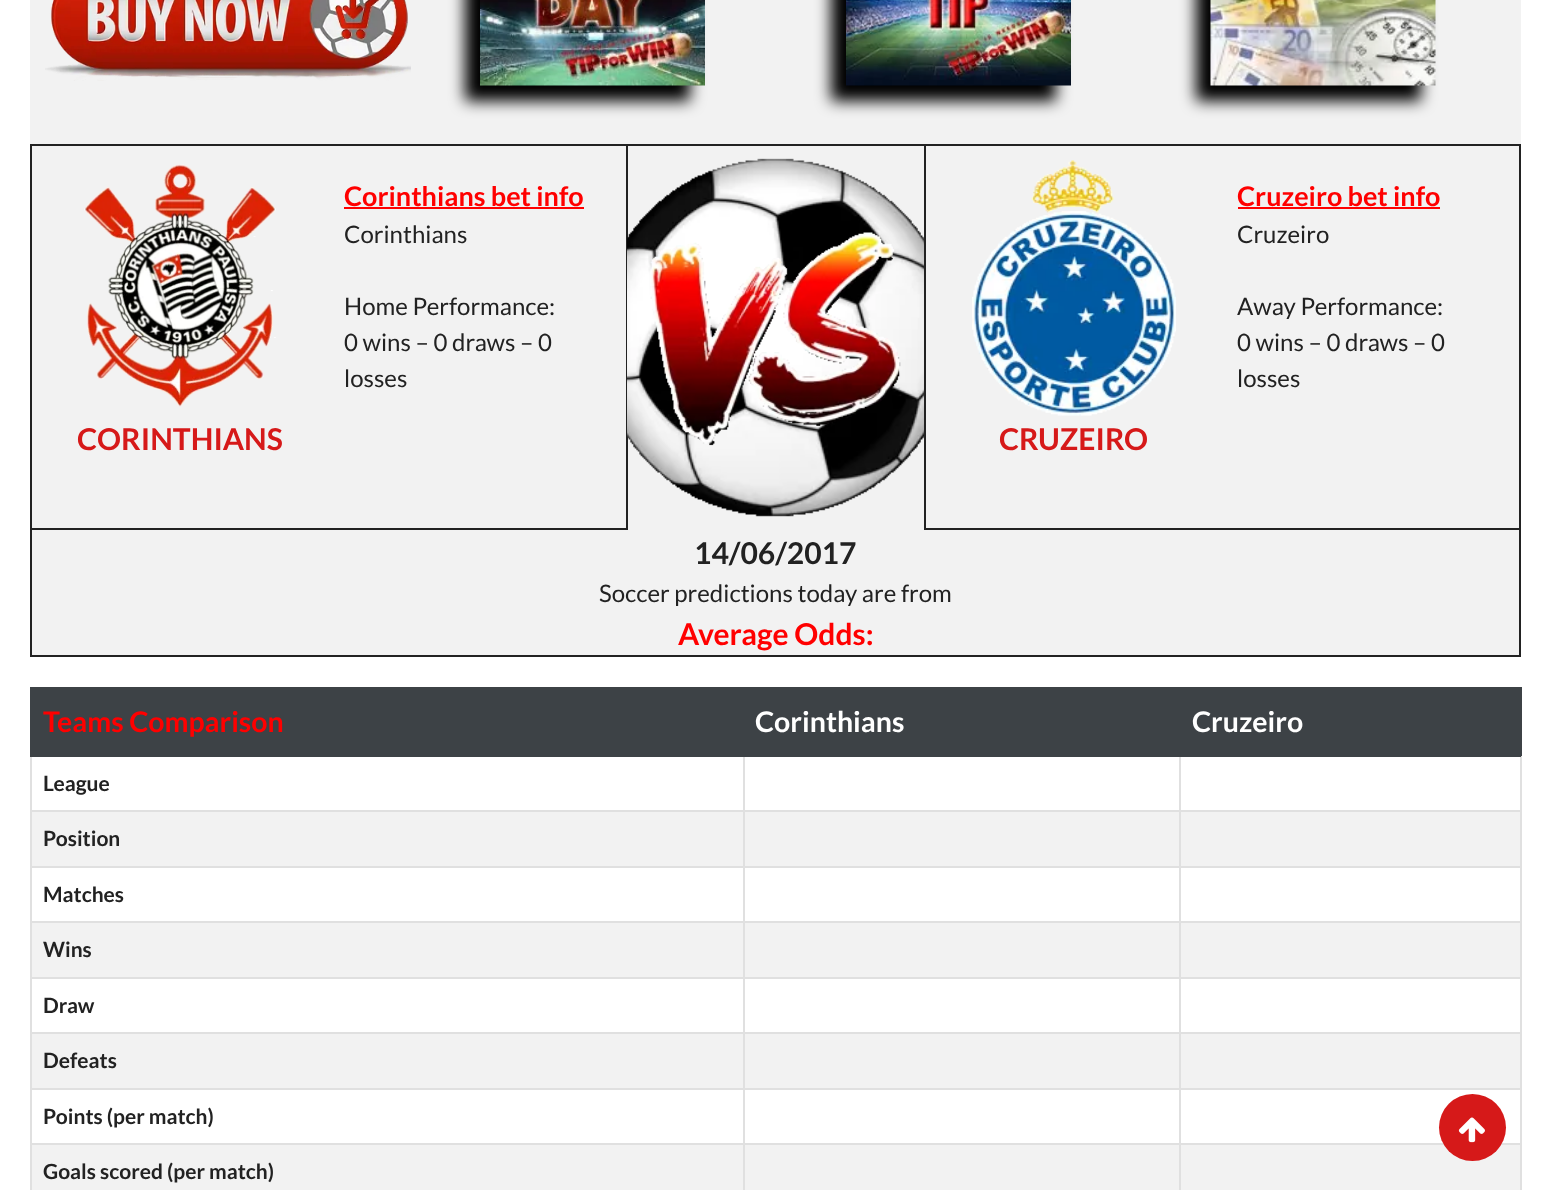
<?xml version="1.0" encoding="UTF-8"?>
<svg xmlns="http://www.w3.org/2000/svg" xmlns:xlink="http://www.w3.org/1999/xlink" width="1550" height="1190">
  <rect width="100%" height="100%" fill="#ffffff" />
  <rect x="30" width="1491" height="144" fill="#f2f2f2" />
  <image x="45" y="0" width="366" height="81" xlink:href="image1.png" />
  <rect x="465" y="-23" width="225" height="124" fill="#000000" filter="blur(7.5px)" />
  <image x="480" y="0" width="225" height="86" xlink:href="image2.png" />
  <rect x="831" y="-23" width="225" height="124" fill="#000000" filter="blur(7.5px)" />
  <image x="846" y="0" width="225" height="86" xlink:href="image3.png" />
  <rect x="1196" y="-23" width="225" height="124" fill="#000000" filter="blur(7.5px)" />
  <image x="1210" y="0" width="226" height="86" xlink:href="image4.png" />
  <rect x="31" y="145" width="1489" height="511" fill="#f2f2f2" stroke="#222222" stroke-width="2" />
  <rect x="626" y="146" width="2" height="384" fill="#222222" />
  <rect x="329" y="528" width="298" height="2" fill="#222222" />
  <rect x="344" y="207" width="240" height="2" fill="#ff0000" />
  <image x="627" y="158" width="297" height="359" xlink:href="image5.png" />
  <image x="650" y="232" width="251" height="214" xlink:href="image6.png" />
  <rect x="1238" y="207" width="202" height="2" fill="#ff0000" />
  <rect x="32" y="528" width="297" height="2" fill="#222222" />
  <image x="84" y="164" width="192" height="243" xlink:href="image7.png" />
  <rect x="924" y="528" width="596" height="2" fill="#222222" />
  <rect x="924" y="146" width="2" height="384" fill="#222222" />
  <image x="972" y="160" width="204" height="256" xlink:href="image8.png" />
  <rect x="1520" y="756" width="2" height="434" fill="#e0e0e0" />
  <rect x="30" y="757" width="2" height="433" fill="#e0e0e0" />
  <rect x="32" y="689" width="1488" height="66" fill="#3d4246" />
  <rect x="30" y="687" width="1491" height="2" fill="#3d4246" />
  <rect x="1520" y="687" width="2" height="69" fill="#3d4246" />
  <rect x="32" y="812" width="1488" height="54" fill="#f2f2f2" />
  <rect x="1179" y="810" width="342" height="2" fill="#e0e0e0" />
  <rect x="1179" y="866" width="342" height="2" fill="#e0e0e0" />
  <rect x="32" y="923" width="1488" height="54" fill="#f2f2f2" />
  <rect x="1179" y="921" width="342" height="2" fill="#e0e0e0" />
  <rect x="1179" y="977" width="342" height="2" fill="#e0e0e0" />
  <rect x="32" y="1034" width="1488" height="54" fill="#f2f2f2" />
  <rect x="1179" y="1032" width="342" height="2" fill="#e0e0e0" />
  <rect x="1179" y="1088" width="342" height="2" fill="#e0e0e0" />
  <rect x="32" y="1145" width="1488" height="45" fill="#f2f2f2" />
  <rect x="1179" y="1143" width="342" height="2" fill="#e0e0e0" />
  <rect x="1179" y="1143" width="2" height="47" fill="#e0e0e0" />
  <rect x="1179" y="1088" width="2" height="57" fill="#e0e0e0" />
  <rect x="1179" y="1032" width="2" height="57" fill="#e0e0e0" />
  <rect x="1179" y="977" width="2" height="57" fill="#e0e0e0" />
  <rect x="1179" y="921" width="2" height="57" fill="#e0e0e0" />
  <rect x="1179" y="866" width="2" height="57" fill="#e0e0e0" />
  <rect x="1179" y="755" width="2" height="112" fill="#e0e0e0" />
  <rect x="743" y="1143" width="2" height="47" fill="#e0e0e0" />
  <rect x="30" y="1143" width="714" height="2" fill="#e0e0e0" />
  <rect x="743" y="1143" width="438" height="2" fill="#e0e0e0" />
  <rect x="743" y="1088" width="2" height="57" fill="#e0e0e0" />
  <rect x="30" y="1088" width="714" height="2" fill="#e0e0e0" />
  <rect x="743" y="1088" width="438" height="2" fill="#e0e0e0" />
  <rect x="743" y="1032" width="2" height="57" fill="#e0e0e0" />
  <rect x="30" y="1032" width="714" height="2" fill="#e0e0e0" />
  <rect x="743" y="1032" width="438" height="2" fill="#e0e0e0" />
  <rect x="743" y="977" width="2" height="57" fill="#e0e0e0" />
  <rect x="30" y="977" width="714" height="2" fill="#e0e0e0" />
  <rect x="743" y="977" width="438" height="2" fill="#e0e0e0" />
  <rect x="743" y="921" width="2" height="57" fill="#e0e0e0" />
  <rect x="30" y="921" width="714" height="2" fill="#e0e0e0" />
  <rect x="743" y="921" width="438" height="2" fill="#e0e0e0" />
  <rect x="743" y="866" width="2" height="57" fill="#e0e0e0" />
  <rect x="30" y="866" width="714" height="2" fill="#e0e0e0" />
  <rect x="743" y="866" width="438" height="2" fill="#e0e0e0" />
  <rect x="743" y="810" width="2" height="57" fill="#e0e0e0" />
  <rect x="30" y="810" width="1151" height="2" fill="#e0e0e0" />
  <rect x="743" y="755" width="2" height="57" fill="#e0e0e0" />
  <rect x="30" y="755" width="1491" height="2" fill="#3d4246" />
  <rect x="30" y="687" width="2" height="69" fill="#3d4246" />
  <circle cx="1472.5" cy="1127.5" r="33.5" fill="#d61919" />
  <image x="1458" y="1117" width="27" height="26" xlink:href="image9.png" />
  <text x="344" y="206" style="font-family: Lato; font-size: 27px; font-weight: bold; fill: #ff0000">Corinthians bet info</text>
  <text x="344" y="243" style="font-family: Lato; font-size: 24px; fill: #222222">Corinthians</text>
  <text x="344" y="315" style="font-family: Lato; font-size: 24px; fill: #222222">Home Performance:</text>
  <text x="344" y="351" style="font-family: Lato; font-size: 24px; fill: #222222">0 wins – 0 draws – 0</text>
  <text x="344" y="387" style="font-family: Lato; font-size: 24px; fill: #222222">losses</text>
  <text x="1237" y="206" style="font-family: Lato; font-size: 27px; font-weight: bold; fill: #ff0000">Cruzeiro bet info</text>
  <text x="1237" y="243" style="font-family: Lato; font-size: 24px; fill: #222222">Cruzeiro</text>
  <text x="1237" y="315" style="font-family: Lato; font-size: 24px; fill: #222222">Away Performance:</text>
  <text x="1237" y="351" style="font-family: Lato; font-size: 24px; fill: #222222">0 wins – 0 draws – 0</text>
  <text x="1237" y="387" style="font-family: Lato; font-size: 24px; fill: #222222">losses</text>
  <text x="77" y="450" style="font-family: Lato; font-size: 30px; font-weight: bold; fill: #d61919">CORINTHIANS</text>
  <text x="999" y="450" style="font-family: Lato; font-size: 30px; font-weight: bold; fill: #d61919">CRUZEIRO</text>
  <text x="694" y="564" style="font-family: Lato; font-size: 30px; font-weight: bold; fill: #222222">14/06/2017</text>
  <text x="599" y="602" style="font-family: Lato; font-size: 24px; fill: #222222">Soccer predictions today are from</text>
  <text x="678" y="645" style="font-family: Lato; font-size: 30px; font-weight: bold; fill: #ff0000">Average Odds:</text>
  <text x="43" y="732" style="font-family: Lato; font-size: 28.5px; font-weight: bold; fill: #ff0000">Teams Comparison</text>
  <text x="755" y="732" style="font-family: Lato; font-size: 28.5px; font-weight: bold; fill: #ffffff">Corinthians</text>
  <text x="1192" y="732" style="font-family: Lato; font-size: 28.5px; font-weight: bold; fill: #ffffff">Cruzeiro</text>
  <text x="43" y="791" style="font-family: Lato; font-size: 21px; font-weight: bold; fill: #222222">League</text>
  <text x="43" y="846" style="font-family: Lato; font-size: 21px; font-weight: bold; fill: #222222">Position</text>
  <text x="43" y="902" style="font-family: Lato; font-size: 21px; font-weight: bold; fill: #222222">Matches</text>
  <text x="43" y="957" style="font-family: Lato; font-size: 21px; font-weight: bold; fill: #222222">Wins</text>
  <text x="43" y="1013" style="font-family: Lato; font-size: 21px; font-weight: bold; fill: #222222">Draw</text>
  <text x="43" y="1068" style="font-family: Lato; font-size: 21px; font-weight: bold; fill: #222222">Defeats</text>
  <text x="43" y="1124" style="font-family: Lato; font-size: 21px; font-weight: bold; fill: #222222">Points (per match)</text>
  <text x="43" y="1179" style="font-family: Lato; font-size: 21px; font-weight: bold; fill: #222222">Goals scored (per match)</text>
</svg>
